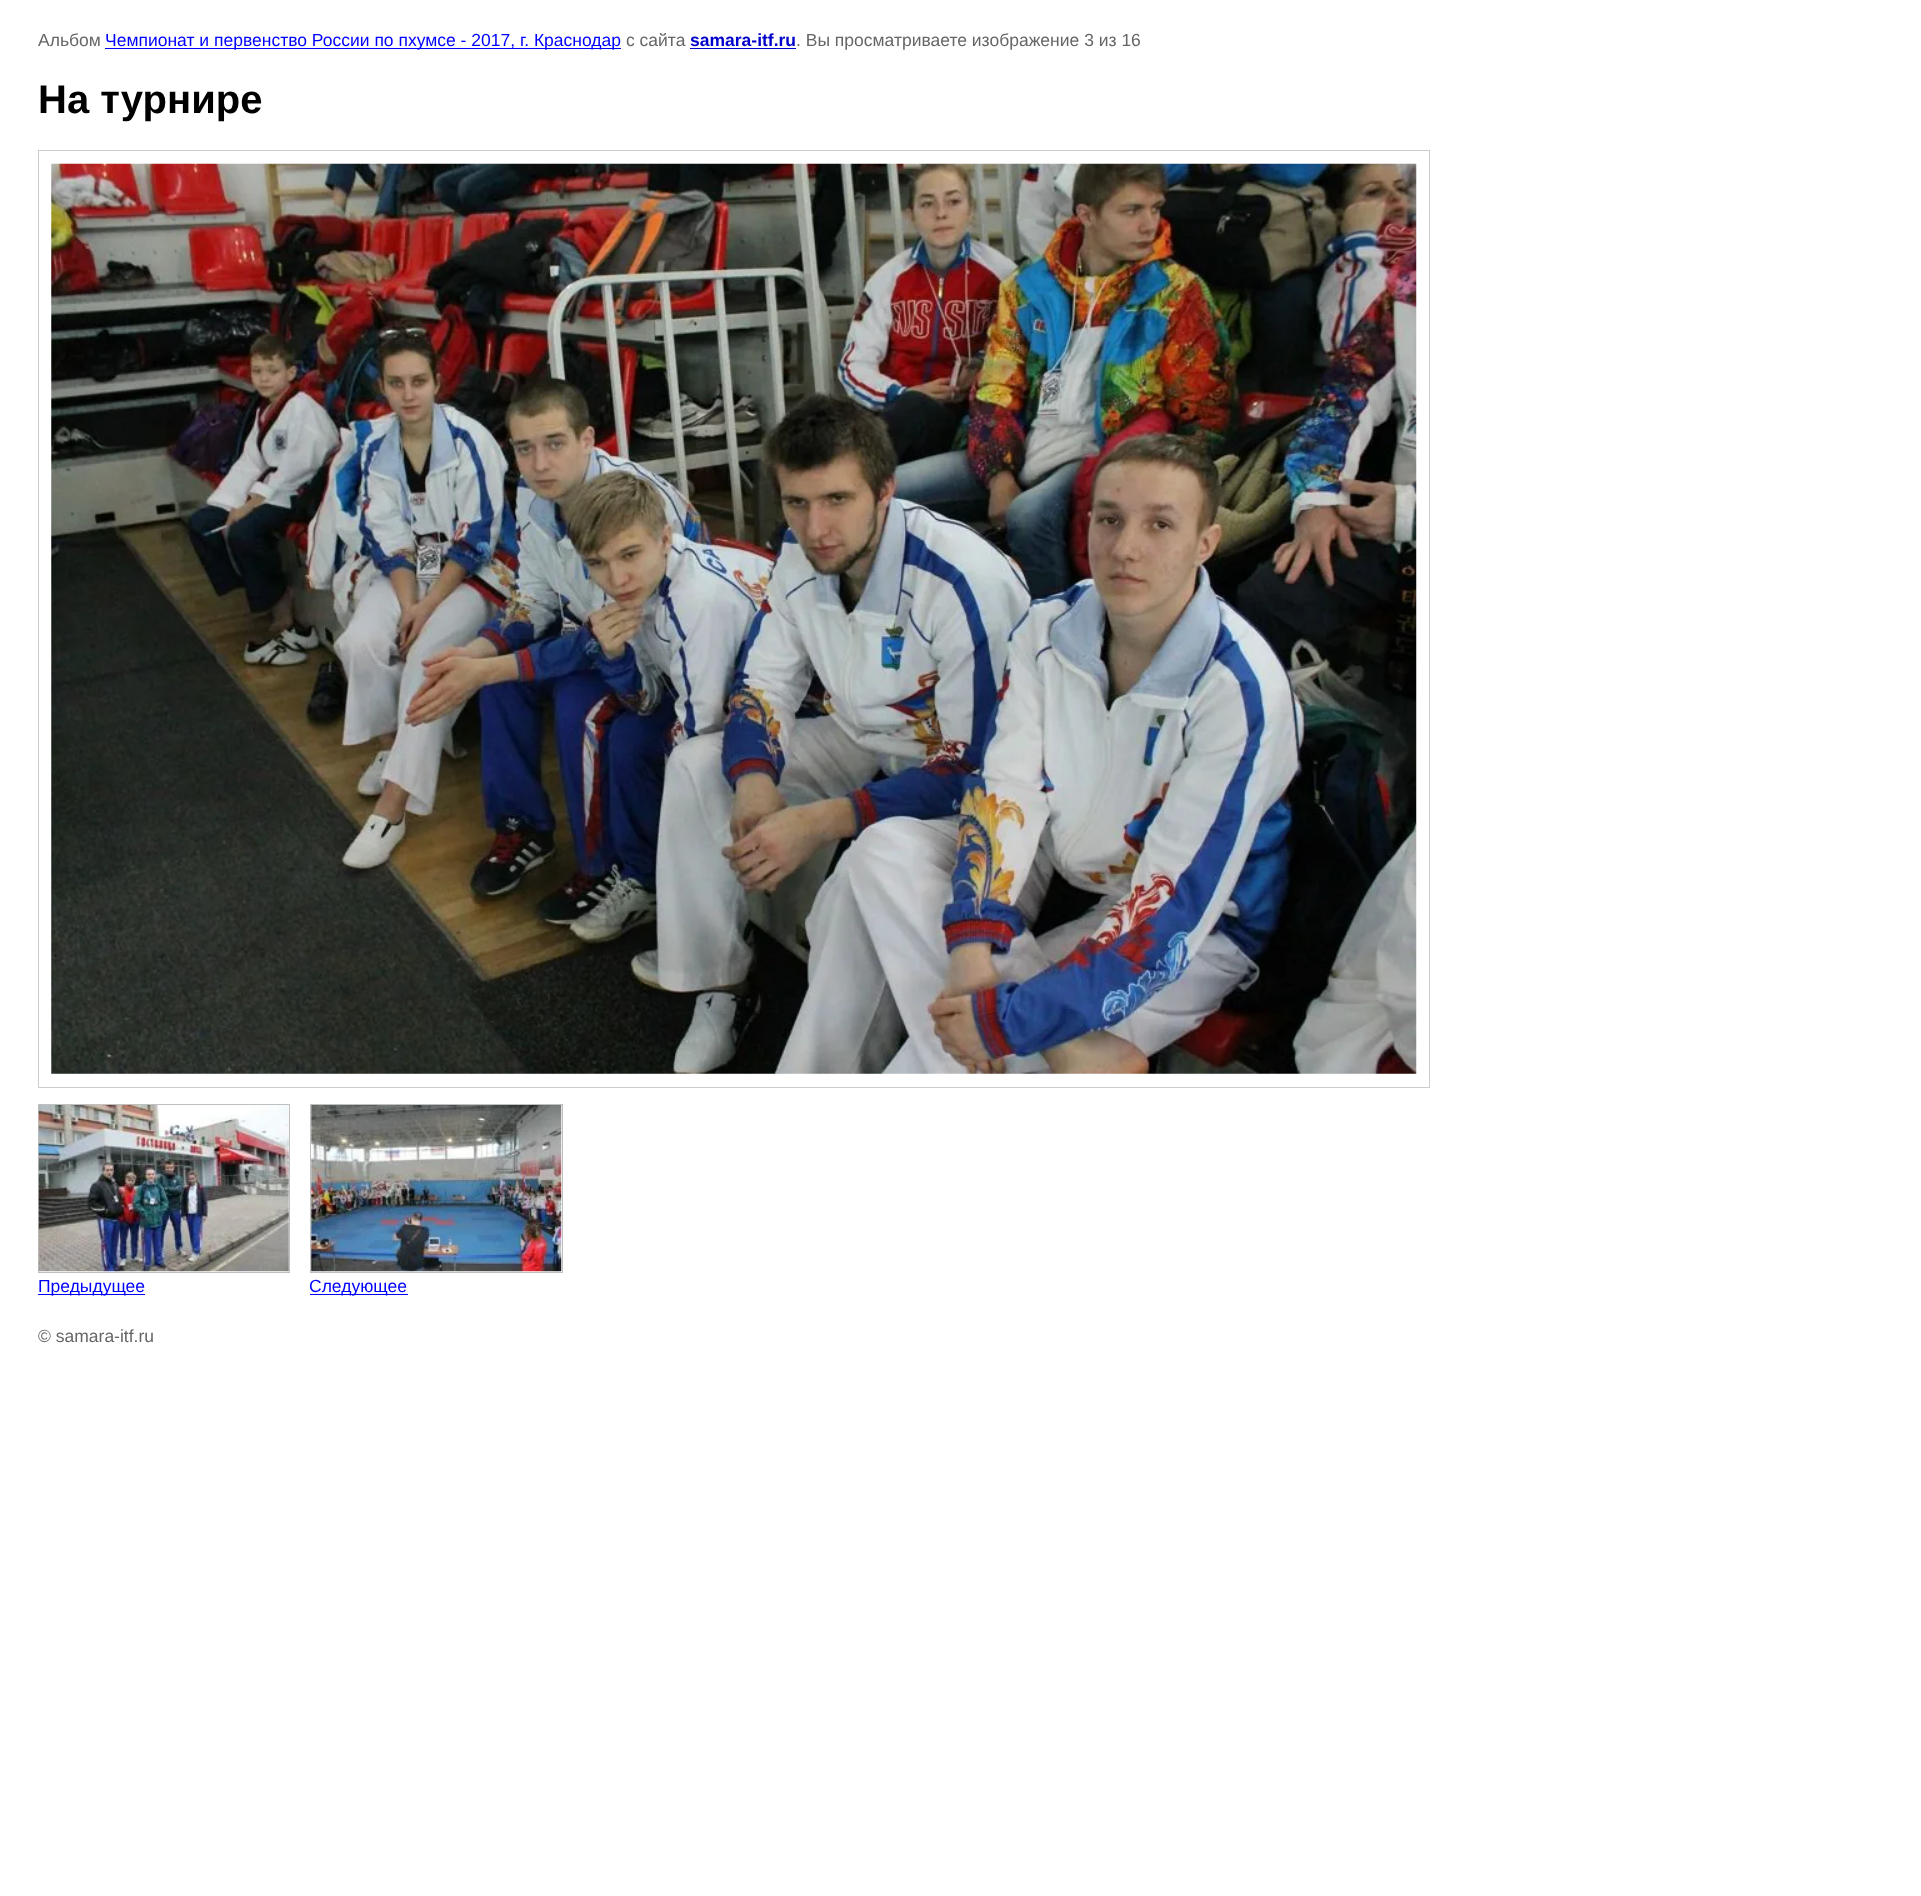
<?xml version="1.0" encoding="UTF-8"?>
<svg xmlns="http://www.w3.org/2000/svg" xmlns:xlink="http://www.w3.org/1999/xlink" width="1921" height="1896">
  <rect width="100%" height="100%" fill="#ffffff" />
  <rect x="105" y="48" width="516" height="1" fill="#0000ff" />
  <rect x="690" y="48" width="106" height="1" fill="#0000cc" />
  <rect x="38.5" y="150.5" width="1391" height="937" fill="none" stroke="#cccccc" />
  <image x="51" y="163" width="1366" height="911" xlink:href="image1.png" />
  <rect x="38.5" y="1104.5" width="251" height="168" fill="none" stroke="#c0c0c0" />
  <image x="38" y="1105" width="251" height="167" xlink:href="image2.png" />
  <rect x="38" y="1294" width="107" height="1" fill="#0000ff" />
  <rect x="310.5" y="1104.5" width="252" height="168" fill="none" stroke="#c0c0c0" />
  <image x="311" y="1105" width="251" height="167" xlink:href="image3.png" />
  <rect x="310" y="1294" width="98" height="1" fill="#0000ff" />
  <text x="38" y="46" style="font-family: Liberation Sans; font-size: 17.5px; fill: #666666">Альбом</text>
  <text x="105" y="46" style="font-family: Liberation Sans; font-size: 17.5px; fill: #0000ff">Чемпионат и первенство России по пхумсе - 2017, г. Краснодар</text>
  <text x="626" y="46" style="font-family: Liberation Sans; font-size: 17.5px; fill: #666666">с сайта</text>
  <text x="690" y="46" style="font-family: Liberation Sans; font-size: 17.5px; font-weight: bold; fill: #0000cc">samara-itf.ru</text>
  <text x="796" y="46" style="font-family: Liberation Sans; font-size: 17.5px; fill: #666666">. Вы просматриваете изображение 3 из 16</text>
  <text x="38" y="113" style="font-family: Liberation Sans; font-size: 40px; font-weight: bold; fill: #000000">На турнире</text>
  <text x="38" y="1292" style="font-family: Liberation Sans; font-size: 17.5px; fill: #0000ff">Предыдущее</text>
  <text x="309" y="1292" style="font-family: Liberation Sans; font-size: 17.5px; fill: #0000ff">Следующее</text>
  <text x="38" y="1342" style="font-family: Liberation Sans; font-size: 17.5px; fill: #666666">© samara-itf.ru</text>
</svg>
